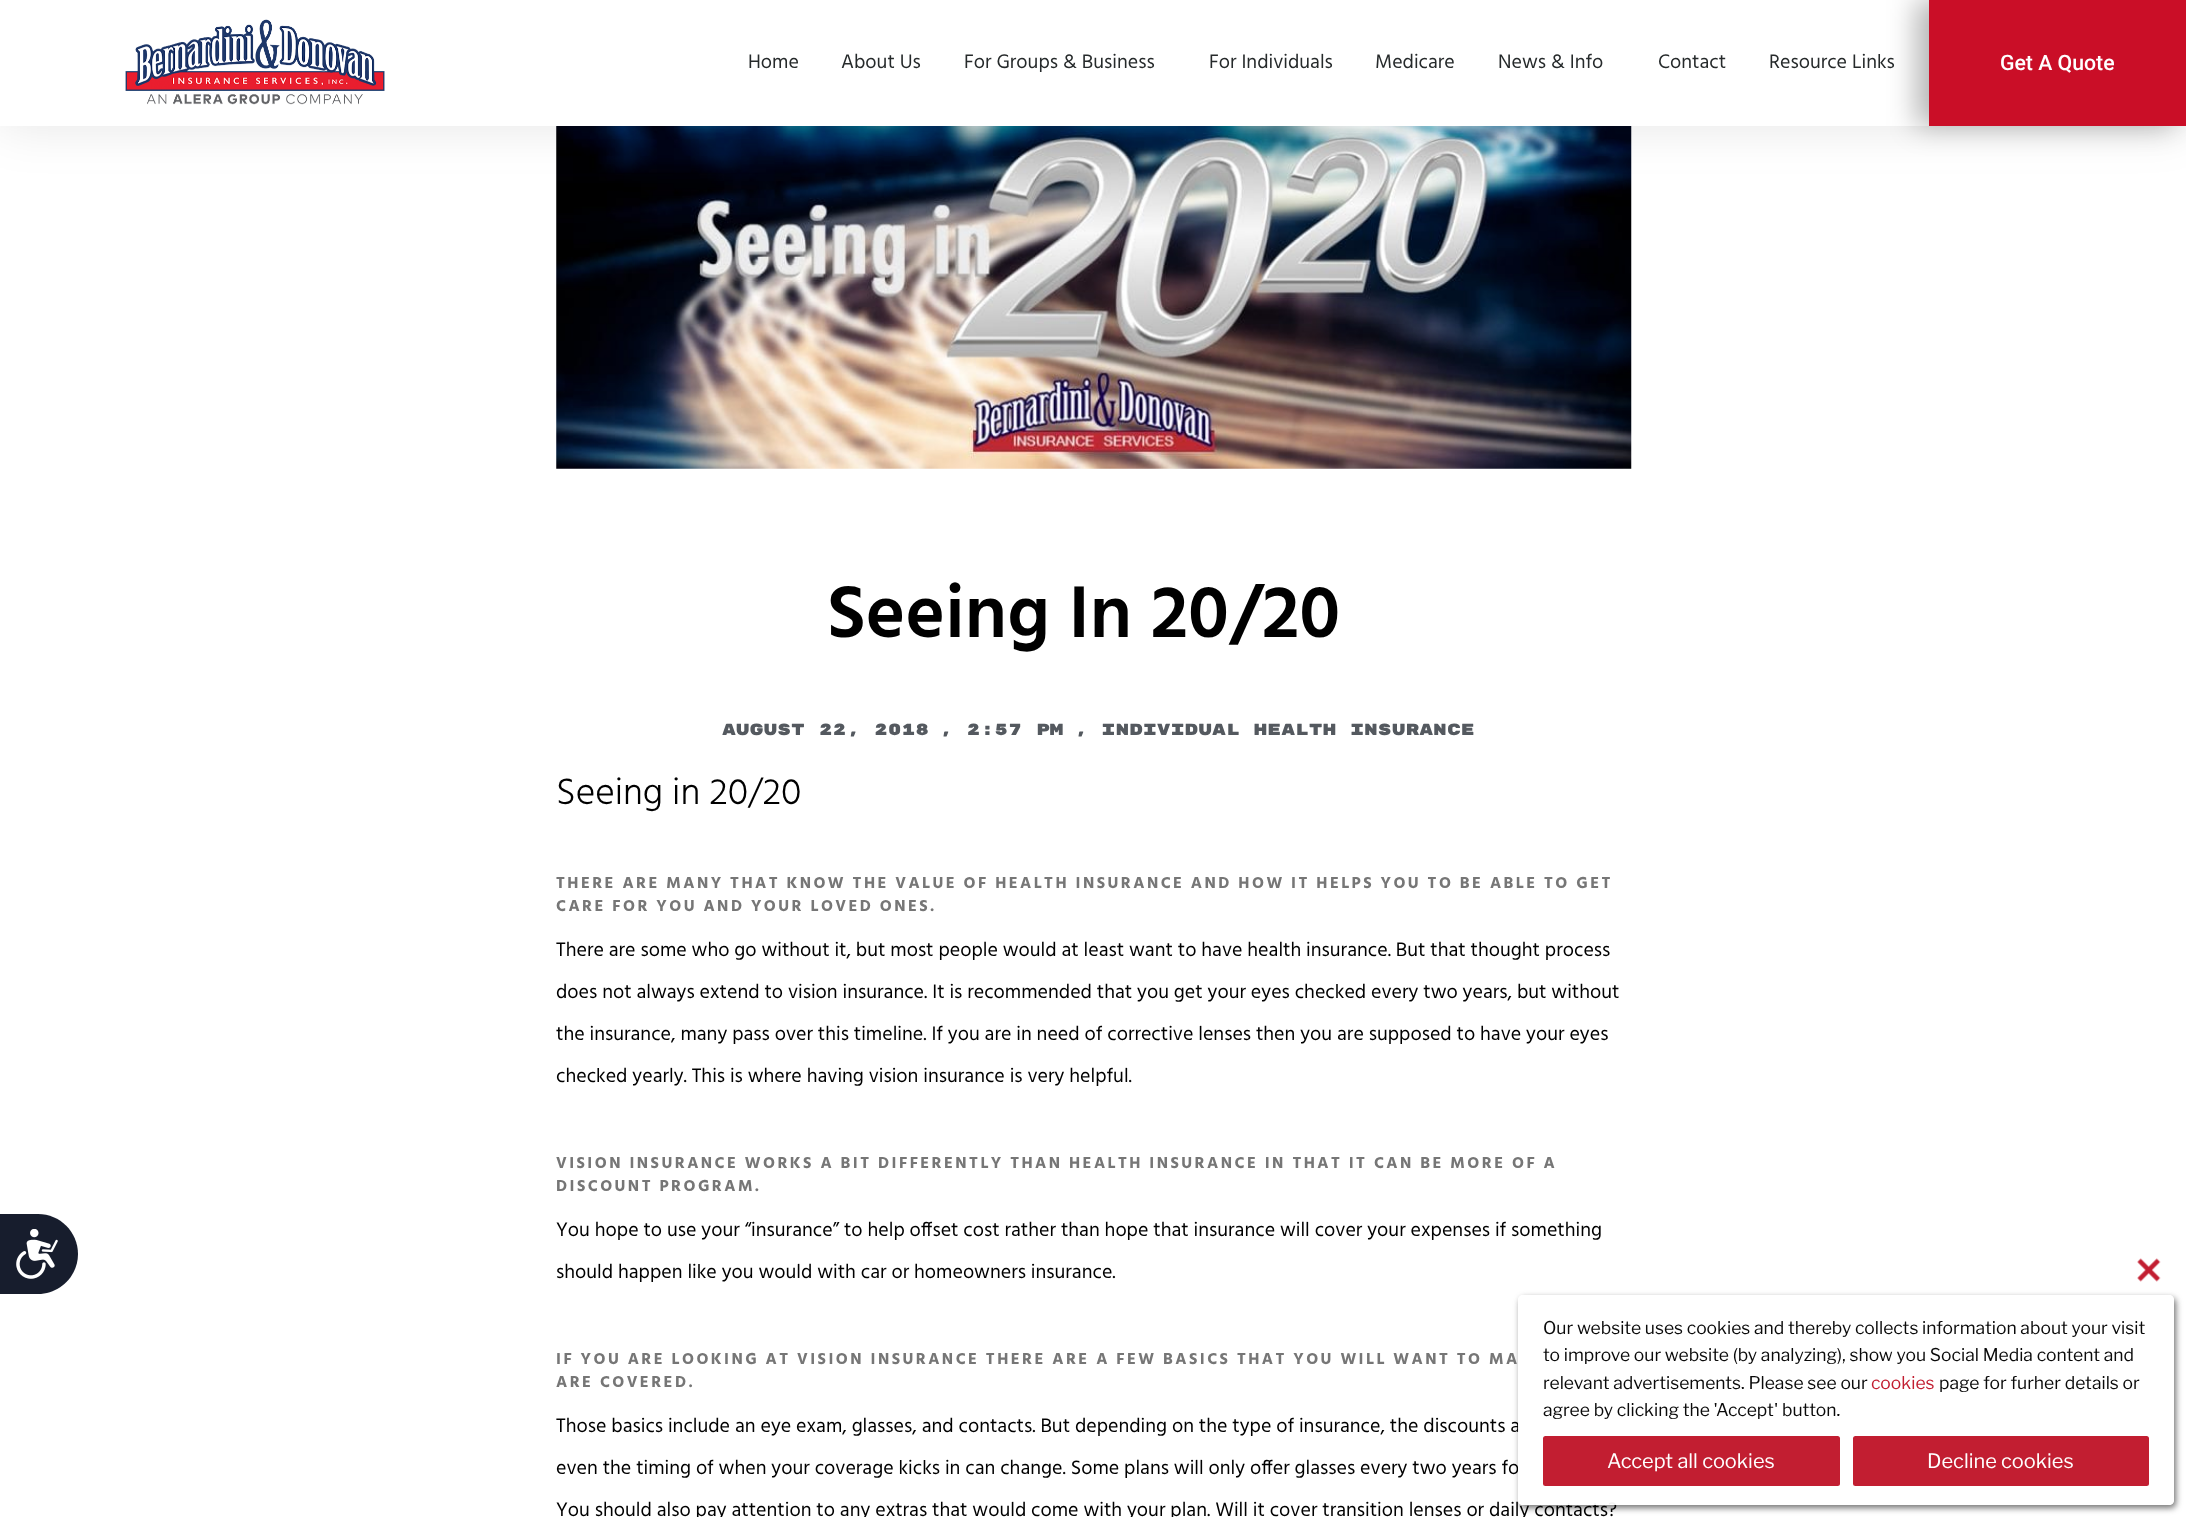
<?xml version="1.0" encoding="UTF-8"?>
<svg xmlns="http://www.w3.org/2000/svg" xmlns:xlink="http://www.w3.org/1999/xlink" width="2186" height="1517">
  <defs>
    <clipPath id="clip1"><path d="M 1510 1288 h 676 v 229 h -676 z m 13 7 h 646 c 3 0 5 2 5 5 v 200 c 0 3 -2 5 -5 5 h -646 c -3 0 -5 -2 -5 -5 v -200 c 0 -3 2 -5 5 -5 z" clip-rule="evenodd" /></clipPath>
  </defs>
  <rect width="100%" height="100%" fill="#ffffff" />
  <image x="556" y="126" width="1076" height="343" xlink:href="image3.png" />
  <rect width="2186" height="126" fill="#000000" fill-opacity="0.1" filter="blur(25px)" />
  <rect width="1929" height="126" fill="#ffffff" />
  <image x="125" y="19" width="260" height="86" xlink:href="image1.png" />
  <rect x="1916" width="258" height="126" fill="#000000" fill-opacity="0.29" filter="blur(14px)" />
  <rect x="1929" width="257" height="126" fill="#ca0e27" />
  <path d="M 0 1214 h 38 c 22 0 40 18 40 40 c 0 22 -18 40 -40 40 h -38 z" fill="#171d2d" />
  <image x="16" y="1229" width="42" height="50" xlink:href="image2.png" />
  <g clip-path="url(#clip1)">
    <rect x="1520" y="1298" width="656" height="210" rx="5" fill="#444444" fill-opacity="0.75" filter="blur(3px)" />
  </g>
  <image x="2137" y="1258" width="24" height="24" xlink:href="image4.png" />
  <text x="748" y="68" style="font-family: Hind; font-size: 20px; fill: #262a2b">Home</text>
  <text x="841" y="68" style="font-family: Hind; font-size: 20px; fill: #262a2b">About Us</text>
  <text x="964" y="68" style="font-family: Hind; font-size: 20px; fill: #262a2b">For Groups &amp; Business</text>
  <text x="1209" y="68" style="font-family: Hind; font-size: 20px; fill: #262a2b">For Individuals</text>
  <text x="1375" y="68" style="font-family: Hind; font-size: 20px; fill: #262a2b">Medicare</text>
  <text x="1498" y="68" style="font-family: Hind; font-size: 20px; fill: #262a2b">News &amp; Info</text>
  <text x="1658" y="68" style="font-family: Hind; font-size: 20px; fill: #262a2b">Contact</text>
  <text x="1769" y="68" style="font-family: Hind; font-size: 20px; fill: #262a2b">Resource Links</text>
  <text x="2000" y="70" style="font-family: Roboto; font-size: 21.25px; font-weight: 500; fill: #ffffff">Get A Quote</text>
  <text x="827" y="637" style="font-family: Hind; font-size: 75px; font-weight: 600; fill: #000000">Seeing In 20/20</text>
  <text x="722" y="735" style="font-family: Rubik Mono One; font-size: 16.25px; fill: #54595f">August 22, 2018</text>
  <text x="939" y="735" style="font-family: Rubik Mono One; font-size: 16.25px; fill: #54595f">, 2:57 pm</text>
  <text x="1074" y="735" style="font-family: Rubik Mono One; font-size: 16.25px; fill: #54595f">, Individual Health Insurance</text>
  <text x="556" y="804" style="font-family: Hind; font-size: 37.5px; font-weight: 300; fill: #000000">Seeing in 20/20</text>
  <text x="556" y="888" style="font-family: Hind; font-size: 16.25px; font-weight: bold; letter-spacing: 2.45px; fill: #767676">THERE ARE MANY THAT KNOW THE VALUE OF HEALTH INSURANCE AND HOW IT HELPS YOU TO BE ABLE TO GET</text>
  <text x="556" y="911" style="font-family: Hind; font-size: 16.25px; font-weight: bold; letter-spacing: 2.45px; fill: #767676">CARE FOR YOU AND YOUR LOVED ONES.</text>
  <text x="556" y="956" style="font-family: Hind; font-size: 20px; fill: #000000">There are some who go without it, but most people would at least want to have health insurance. But that thought process</text>
  <text x="556" y="998" style="font-family: Hind; font-size: 20px; fill: #000000">does not always extend to vision insurance. It is recommended that you get your eyes checked every two years, but without</text>
  <text x="556" y="1040" style="font-family: Hind; font-size: 20px; fill: #000000">the insurance, many pass over this timeline. If you are in need of corrective lenses then you are supposed to have your eyes</text>
  <text x="556" y="1082" style="font-family: Hind; font-size: 20px; fill: #000000">checked yearly. This is where having vision insurance is very helpful.</text>
  <text x="556" y="1168" style="font-family: Hind; font-size: 16.25px; font-weight: bold; letter-spacing: 2.45px; fill: #767676">VISION INSURANCE WORKS A BIT DIFFERENTLY THAN HEALTH INSURANCE IN THAT IT CAN BE MORE OF A</text>
  <text x="556" y="1191" style="font-family: Hind; font-size: 16.25px; font-weight: bold; letter-spacing: 2.45px; fill: #767676">DISCOUNT PROGRAM.</text>
  <text x="556" y="1236" style="font-family: Hind; font-size: 20px; fill: #000000">You hope to use your “insurance” to help offset cost rather than hope that insurance will cover your expenses if something</text>
  <text x="556" y="1278" style="font-family: Hind; font-size: 20px; fill: #000000">should happen like you would with car or homeowners insurance.</text>
  <text x="556" y="1364" style="font-family: Hind; font-size: 16.25px; font-weight: bold; letter-spacing: 2.45px; fill: #767676">IF YOU ARE LOOKING AT VISION INSURANCE THERE ARE A FEW BASICS THAT YOU WILL WANT TO MA</text>
  <text x="556" y="1387" style="font-family: Hind; font-size: 16.25px; font-weight: bold; letter-spacing: 2.45px; fill: #767676">ARE COVERED.</text>
  <text x="556" y="1432" style="font-family: Hind; font-size: 20px; fill: #000000">Those basics include an eye exam, glasses, and contacts. But depending on the type of insurance, the discounts a</text>
  <text x="556" y="1474" style="font-family: Hind; font-size: 20px; fill: #000000">even the timing of when your coverage kicks in can change. Some plans will only offer glasses every two years fo</text>
  <text x="556" y="1516" style="font-family: Hind; font-size: 20px; fill: #000000">You should also pay attention to any extras that would come with your plan. Will it cover transition lenses or daily contacts?</text>
  <rect x="1518" y="1295" width="656" height="210" rx="5" fill="#ffffff" fill-opacity="0.95" />
  <text x="1543" y="1334" style="font-family: Libre Franklin; font-size: 17.5px; font-weight: 100; fill: #0a0a0a">Our website uses cookies and thereby collects information about your visit</text>
  <text x="1543" y="1361" style="font-family: Libre Franklin; font-size: 17.5px; font-weight: 100; fill: #0a0a0a">to improve our website (by analyzing), show you Social Media content and</text>
  <text x="1543" y="1389" style="font-family: Libre Franklin; font-size: 17.5px; font-weight: 100; fill: #0a0a0a">relevant advertisements. Please see our</text>
  <text x="1871" y="1389" style="font-family: Libre Franklin; font-size: 17.5px; font-weight: 100; fill: #c21e31">cookies</text>
  <text x="1939" y="1389" style="font-family: Libre Franklin; font-size: 17.5px; font-weight: 100; fill: #0a0a0a">page for furher details or</text>
  <text x="1543" y="1416" style="font-family: Libre Franklin; font-size: 17.5px; font-weight: 100; fill: #0a0a0a">agree by clicking the 'Accept' button.</text>
  <rect x="1543" y="1436" width="297" height="50" rx="2.5" fill="#c21e31" />
  <text x="1607" y="1468" style="font-family: Libre Franklin; font-size: 20px; font-weight: 100; fill: #ffffff">Accept all cookies</text>
  <rect x="1853" y="1436" width="296" height="50" rx="2.5" fill="#c21e31" />
  <text x="1927" y="1468" style="font-family: Libre Franklin; font-size: 20px; font-weight: 100; fill: #ffffff">Decline cookies</text>
</svg>
